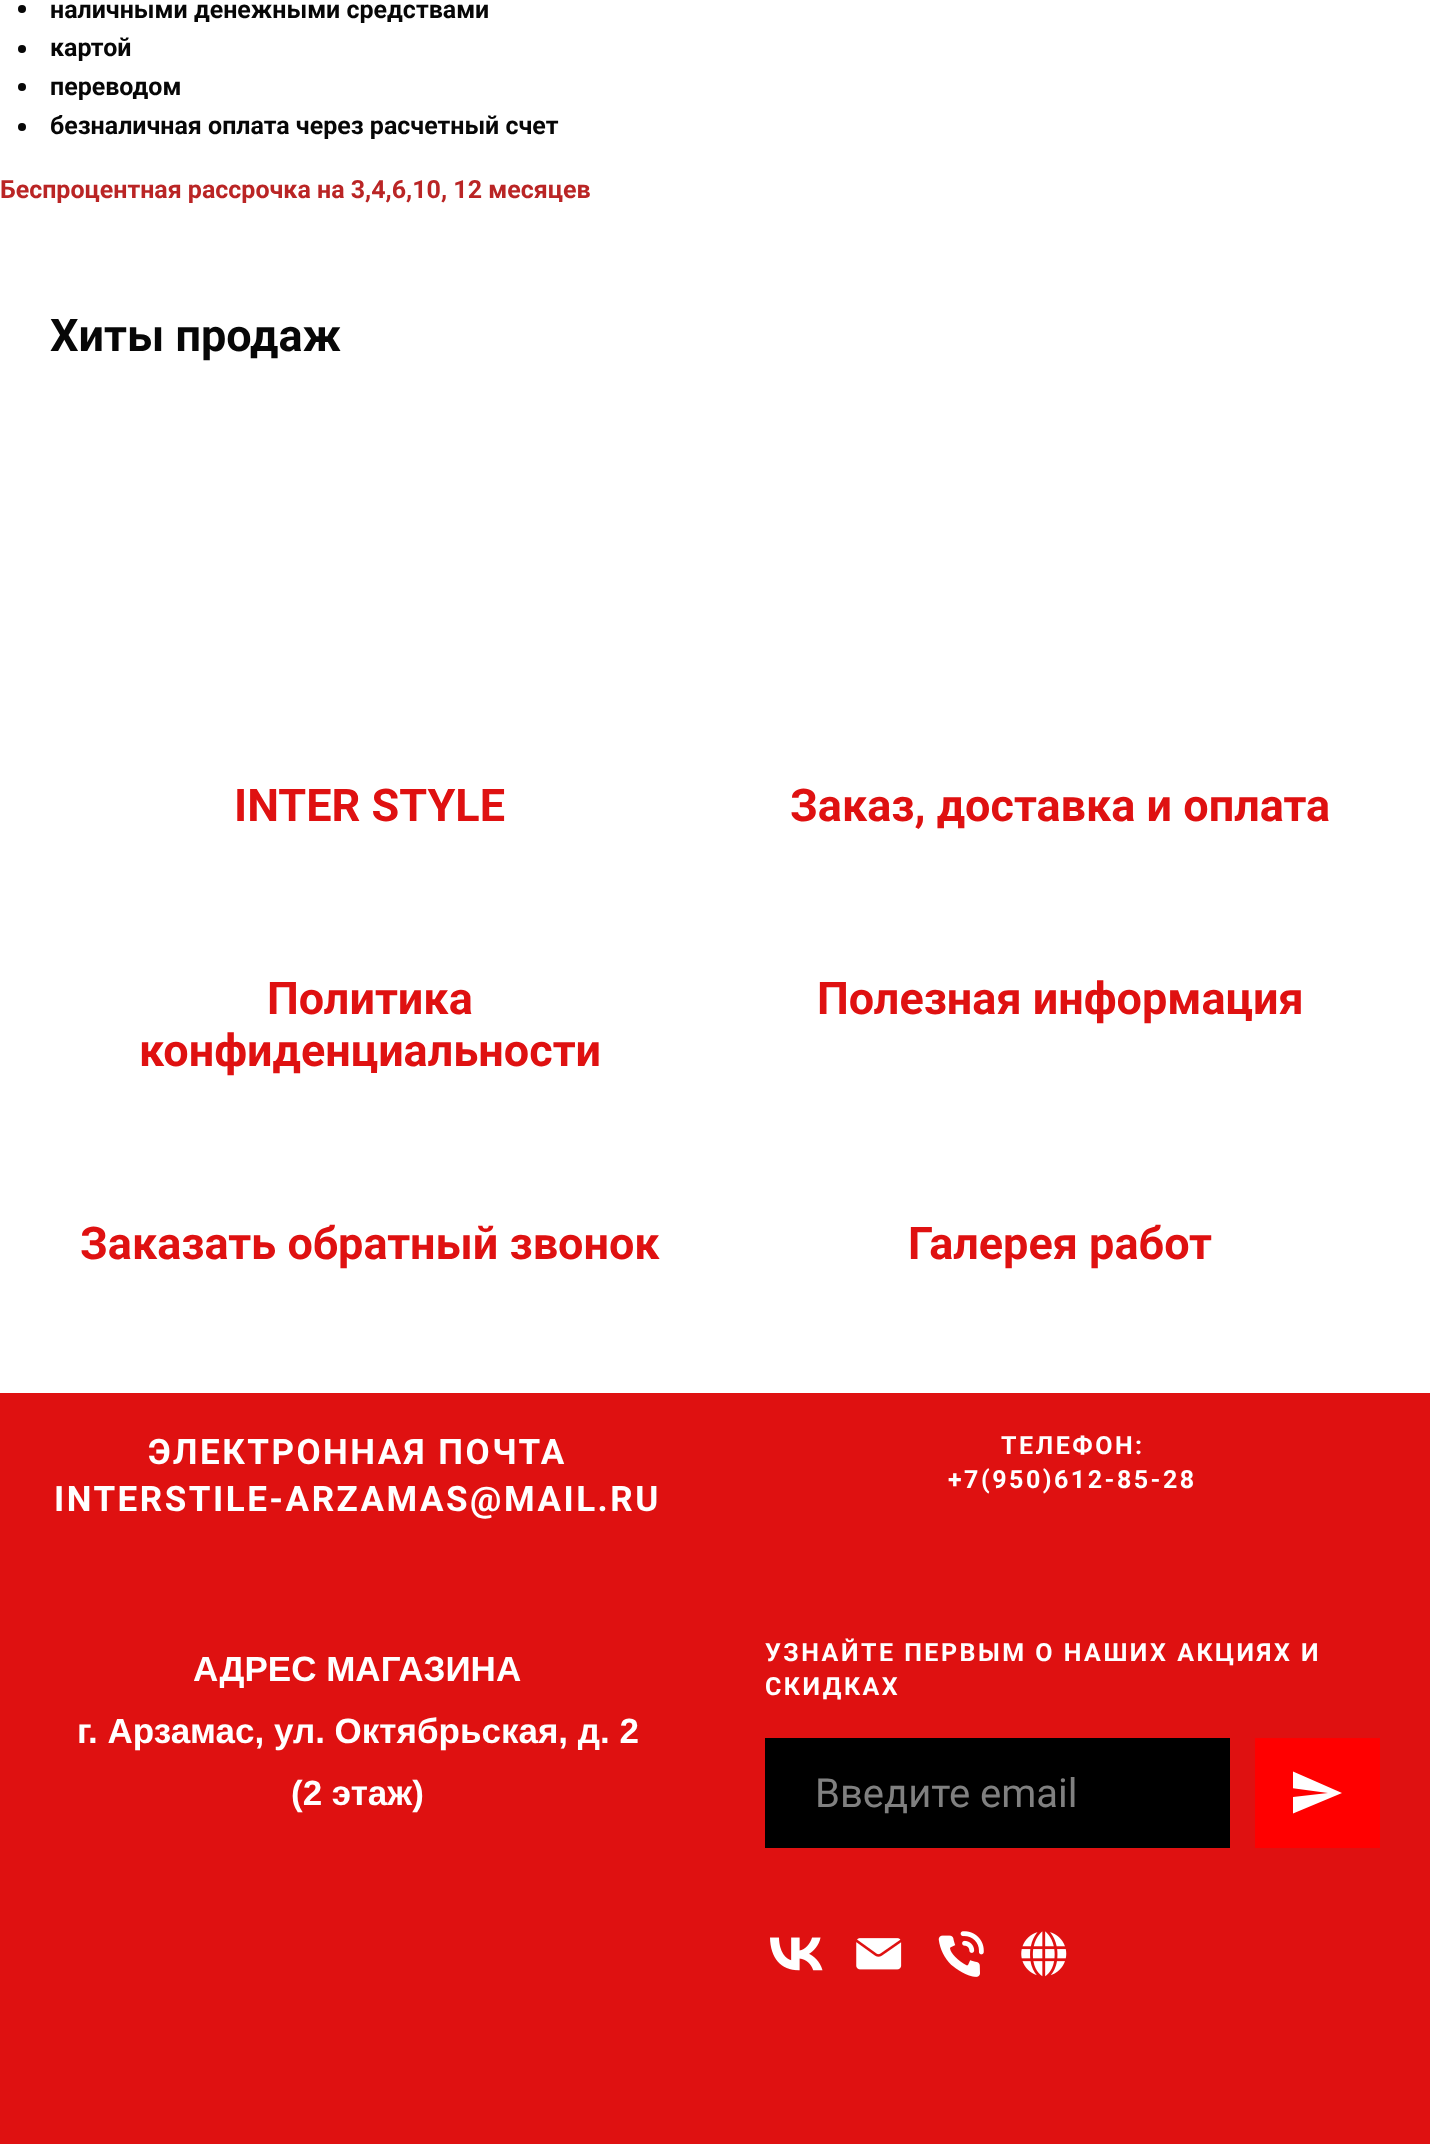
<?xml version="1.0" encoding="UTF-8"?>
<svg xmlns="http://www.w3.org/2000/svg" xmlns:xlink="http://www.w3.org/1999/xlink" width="1430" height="2144">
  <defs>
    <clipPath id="clip1"><rect x="1293" y="1768" width="50" height="50" /></clipPath>
  </defs>
  <rect width="100%" height="100%" fill="#ffffff" />
  <circle cx="22" cy="9" r="4" fill="#070707" />
  <circle cx="22" cy="49" r="4" fill="#070707" />
  <circle cx="22" cy="87" r="4" fill="#070707" />
  <circle cx="22" cy="127" r="4" fill="#070707" />
  <rect y="1393" width="1430" height="751" fill="#df1111" />
  <rect x="765" y="1738" width="465" height="110" fill="#000000" />
  <rect x="1255" y="1738" width="125" height="110" fill="#ff0000" />
  <g clip-path="url(#clip1)">
    <path d="M 1292 1814 l 50 -21 l -50 -22 v 17 l 36 5 l -36 4 z" fill="#ffffff" />
  </g>
  <image x="770" y="1937" width="53" height="34" xlink:href="image1.png" />
  <image x="856" y="1938" width="46" height="32" xlink:href="image2.png" />
  <image x="938" y="1931" width="46" height="46" xlink:href="image3.png" />
  <image x="1021" y="1931" width="46" height="46" xlink:href="image4.png" />
  <text x="50" y="18" style="font-family: Roboto; font-size: 25px; font-weight: bold; fill: #070707">наличными денежными средствами</text>
  <text x="50" y="56" style="font-family: Roboto; font-size: 25px; font-weight: bold; fill: #070707">картой</text>
  <text x="50" y="95" style="font-family: Roboto; font-size: 25px; font-weight: bold; fill: #070707">переводом</text>
  <text x="50" y="134" style="font-family: Roboto; font-size: 25px; font-weight: bold; fill: #070707">безналичная оплата через расчетный счет</text>
  <text x="0" y="198" style="font-family: Roboto; font-size: 25px; font-weight: bold; fill: #ba2525">Беспроцентная рассрочка на 3,4,6,10, 12 месяцев</text>
  <text x="50" y="351" style="font-family: Roboto; font-size: 45px; font-weight: bold; fill: #070707">Хиты продаж</text>
  <text x="234" y="821" style="font-family: Roboto; font-size: 45px; font-weight: bold; fill: #df1111">INTER STYLE</text>
  <text x="790" y="821" style="font-family: Roboto; font-size: 45px; font-weight: bold; fill: #df1111">Заказ, доставка и оплата</text>
  <text x="267" y="1014" style="font-family: Roboto; font-size: 45px; font-weight: bold; fill: #df1111">Политика</text>
  <text x="139" y="1066" style="font-family: Roboto; font-size: 45px; font-weight: bold; fill: #df1111">конфиденциальности</text>
  <text x="817" y="1014" style="font-family: Roboto; font-size: 45px; font-weight: bold; fill: #df1111">Полезная информация</text>
  <text x="80" y="1259" style="font-family: Roboto; font-size: 45px; font-weight: bold; fill: #df1111">Заказать обратный звонок</text>
  <text x="908" y="1259" style="font-family: Roboto; font-size: 45px; font-weight: bold; fill: #df1111">Галерея работ</text>
  <text x="148" y="1464" style="font-family: Roboto; font-size: 35px; font-weight: bold; letter-spacing: 2.5px; fill: #ffffff">ЭЛЕКТРОННАЯ ПОЧТА</text>
  <text x="54" y="1511" style="font-family: Roboto; font-size: 35px; font-weight: bold; letter-spacing: 2.5px; fill: #ffffff">INTERSTILE-ARZAMAS@MAIL.RU</text>
  <text x="1001" y="1454" style="font-family: Roboto; font-size: 25px; font-weight: bold; letter-spacing: 2.5px; fill: #ffffff">ТЕЛЕФОН:</text>
  <text x="948" y="1488" style="font-family: Roboto; font-size: 25px; font-weight: bold; letter-spacing: 2.5px; fill: #ffffff">+7(950)612-85-28</text>
  <text x="193" y="1681" style="font-family: Liberation Sans; font-size: 35px; font-weight: bold; fill: #ffffff">АДРЕС МАГАЗИНА</text>
  <text x="77" y="1743" style="font-family: Liberation Sans; font-size: 35px; font-weight: bold; fill: #ffffff">г. Арзамас, ул. Октябрьская, д. 2</text>
  <text x="291" y="1805" style="font-family: Liberation Sans; font-size: 35px; font-weight: bold; fill: #ffffff">(2 этаж)</text>
  <text x="765" y="1661" style="font-family: Roboto; font-size: 25px; font-weight: bold; letter-spacing: 2.5px; fill: #ffffff">УЗНАЙТЕ ПЕРВЫМ О НАШИХ АКЦИЯХ И</text>
  <text x="765" y="1695" style="font-family: Roboto; font-size: 25px; font-weight: bold; letter-spacing: 2.5px; fill: #ffffff">СКИДКАХ</text>
  <text x="815" y="1807" style="font-family: Roboto; font-size: 40px; fill: #808080">Введите email</text>
</svg>
